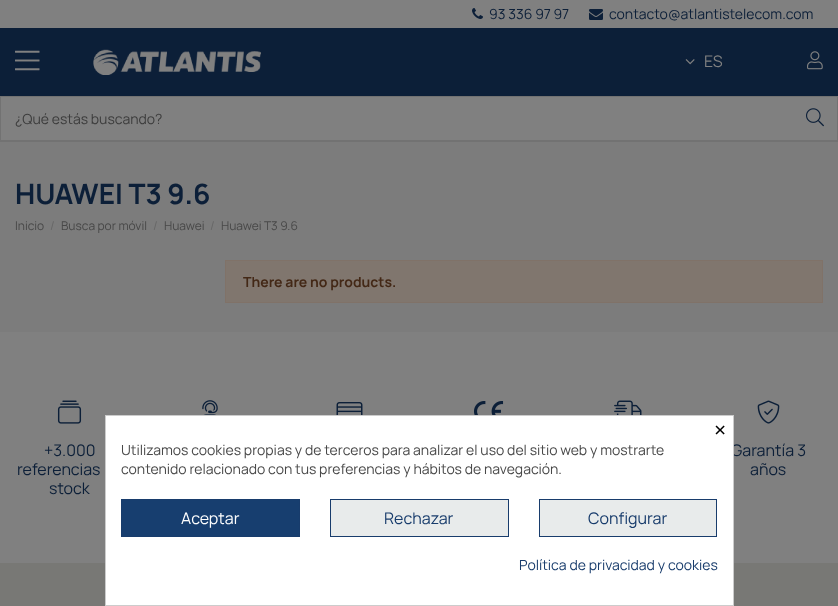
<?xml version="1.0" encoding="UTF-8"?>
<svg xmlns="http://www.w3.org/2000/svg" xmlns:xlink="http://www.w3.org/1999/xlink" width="838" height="606">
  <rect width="100%" height="100%" fill="#7c7c7c" />
  <rect y="28" width="838" height="68" fill="#0c1f38" />
  <rect width="838" height="28" fill="#808080" />
  <image x="472" y="8" width="11" height="11" xlink:href="image1.png" />
  <image x="589" y="9" width="14" height="11" xlink:href="image2.png" />
  <rect y="141" width="838" height="1" fill="#727272" />
  <image x="15" y="50" width="25" height="21" xlink:href="image3.png" />
  <image x="93" y="49" width="168" height="26" xlink:href="image4.png" />
  <image x="685" y="59" width="10" height="6" xlink:href="image5.png" />
  <image x="807" y="51" width="16" height="19" xlink:href="image6.png" />
  <rect x="0.5" y="96.5" width="837" height="44" fill="#808080" stroke="#727272" />
  <image x="806" y="108" width="18" height="19" xlink:href="image7.png" />
  <rect x="225.5" y="260.5" width="597" height="42" fill="#80766e" stroke="#807268" />
  <rect y="332" width="838" height="231" fill="#808080" />
  <image x="202" y="400" width="16" height="15" xlink:href="image8.png" />
  <image x="336" y="402" width="27" height="13" xlink:href="image9.png" />
  <image x="474" y="401" width="30" height="14" xlink:href="image10.png" />
  <image x="614" y="400" width="28" height="15" xlink:href="image11.png" />
  <image x="57" y="400" width="25" height="24" xlink:href="image12.png" />
  <image x="757" y="400" width="23" height="24" xlink:href="image13.png" />
  <rect y="563" width="838" height="43" fill="#787875" />
  <text x="489" y="19" style="font-family: Manrope; font-size: 14px; fill: #0c1f38">93 336 97 97</text>
  <text x="609" y="19" style="font-family: Manrope; font-size: 14px; fill: #0c1f38">contacto@atlantistelecom.com</text>
  <text x="704" y="67" style="font-family: Manrope; font-size: 16px; fill: #808080">ES</text>
  <text x="15" y="124" style="font-family: Manrope; font-size: 14px; fill: #3c3c3c">¿Qué estás buscando?</text>
  <text x="15" y="204" style="font-family: Manrope; font-size: 28px; font-weight: bold; fill: #0c1f38">HUAWEI T3 9.6</text>
  <text x="15" y="230" style="font-family: Manrope; font-size: 12px; fill: #484848">Inicio</text>
  <text x="50" y="230" style="font-family: Manrope; font-size: 12px; fill: #676767">/</text>
  <text x="61" y="230" style="font-family: Manrope; font-size: 12px; fill: #484848">Busca por móvil</text>
  <text x="153" y="230" style="font-family: Manrope; font-size: 12px; fill: #676767">/</text>
  <text x="164" y="230" style="font-family: Manrope; font-size: 12px; fill: #484848">Huawei</text>
  <text x="210" y="230" style="font-family: Manrope; font-size: 12px; fill: #676767">/</text>
  <text x="221" y="230" style="font-family: Manrope; font-size: 12px; fill: #484848">Huawei T3 9.6</text>
  <text x="243" y="287" style="font-family: Manrope; font-size: 14px; font-weight: bold; fill: #432816">There are no products.</text>
  <text x="44" y="456" style="font-family: Manrope; font-size: 16px; fill: #0c1f38">+3.000</text>
  <text x="17" y="475" style="font-family: Manrope; font-size: 16px; fill: #0c1f38">referencias</text>
  <text x="49" y="494" style="font-family: Manrope; font-size: 16px; fill: #0c1f38">stock</text>
  <text x="731" y="456" style="font-family: Manrope; font-size: 16px; fill: #0c1f38">Garantía 3</text>
  <text x="750" y="475" style="font-family: Manrope; font-size: 16px; fill: #0c1f38">años</text>
  <rect x="105.5" y="415.5" width="628" height="190" fill="#ffffff" stroke="#cccccc" />
  <text x="714" y="439" style="font-family: Manrope; font-size: 25px; fill: #000000">×</text>
  <text x="121" y="455" style="font-family: Manrope; font-size: 14px; fill: #484848">Utilizamos cookies propias y de terceros para analizar el uso del sitio web y mostrarte</text>
  <text x="121" y="474" style="font-family: Manrope; font-size: 14px; fill: #484848">contenido relacionado con tus preferencias y hábitos de navegación.</text>
  <rect x="121.5" y="499.5" width="178" height="37" fill="#173e6f" stroke="#183c6c" />
  <text x="181" y="524" style="font-family: Manrope; font-size: 16px; fill: #ffffff">Aceptar</text>
  <rect x="330.5" y="499.5" width="178" height="37" fill="#e8ebeb" stroke="#183c6c" />
  <text x="384" y="524" style="font-family: Manrope; font-size: 16px; fill: #183c6c">Rechazar</text>
  <rect x="539.5" y="499.5" width="177" height="37" fill="#e8ebeb" stroke="#183c6c" />
  <text x="588" y="524" style="font-family: Manrope; font-size: 16px; fill: #183c6c">Configurar</text>
  <text x="519" y="570" style="font-family: Manrope; font-size: 14px; fill: #183c6c">Política de privacidad y cookies</text>
</svg>
